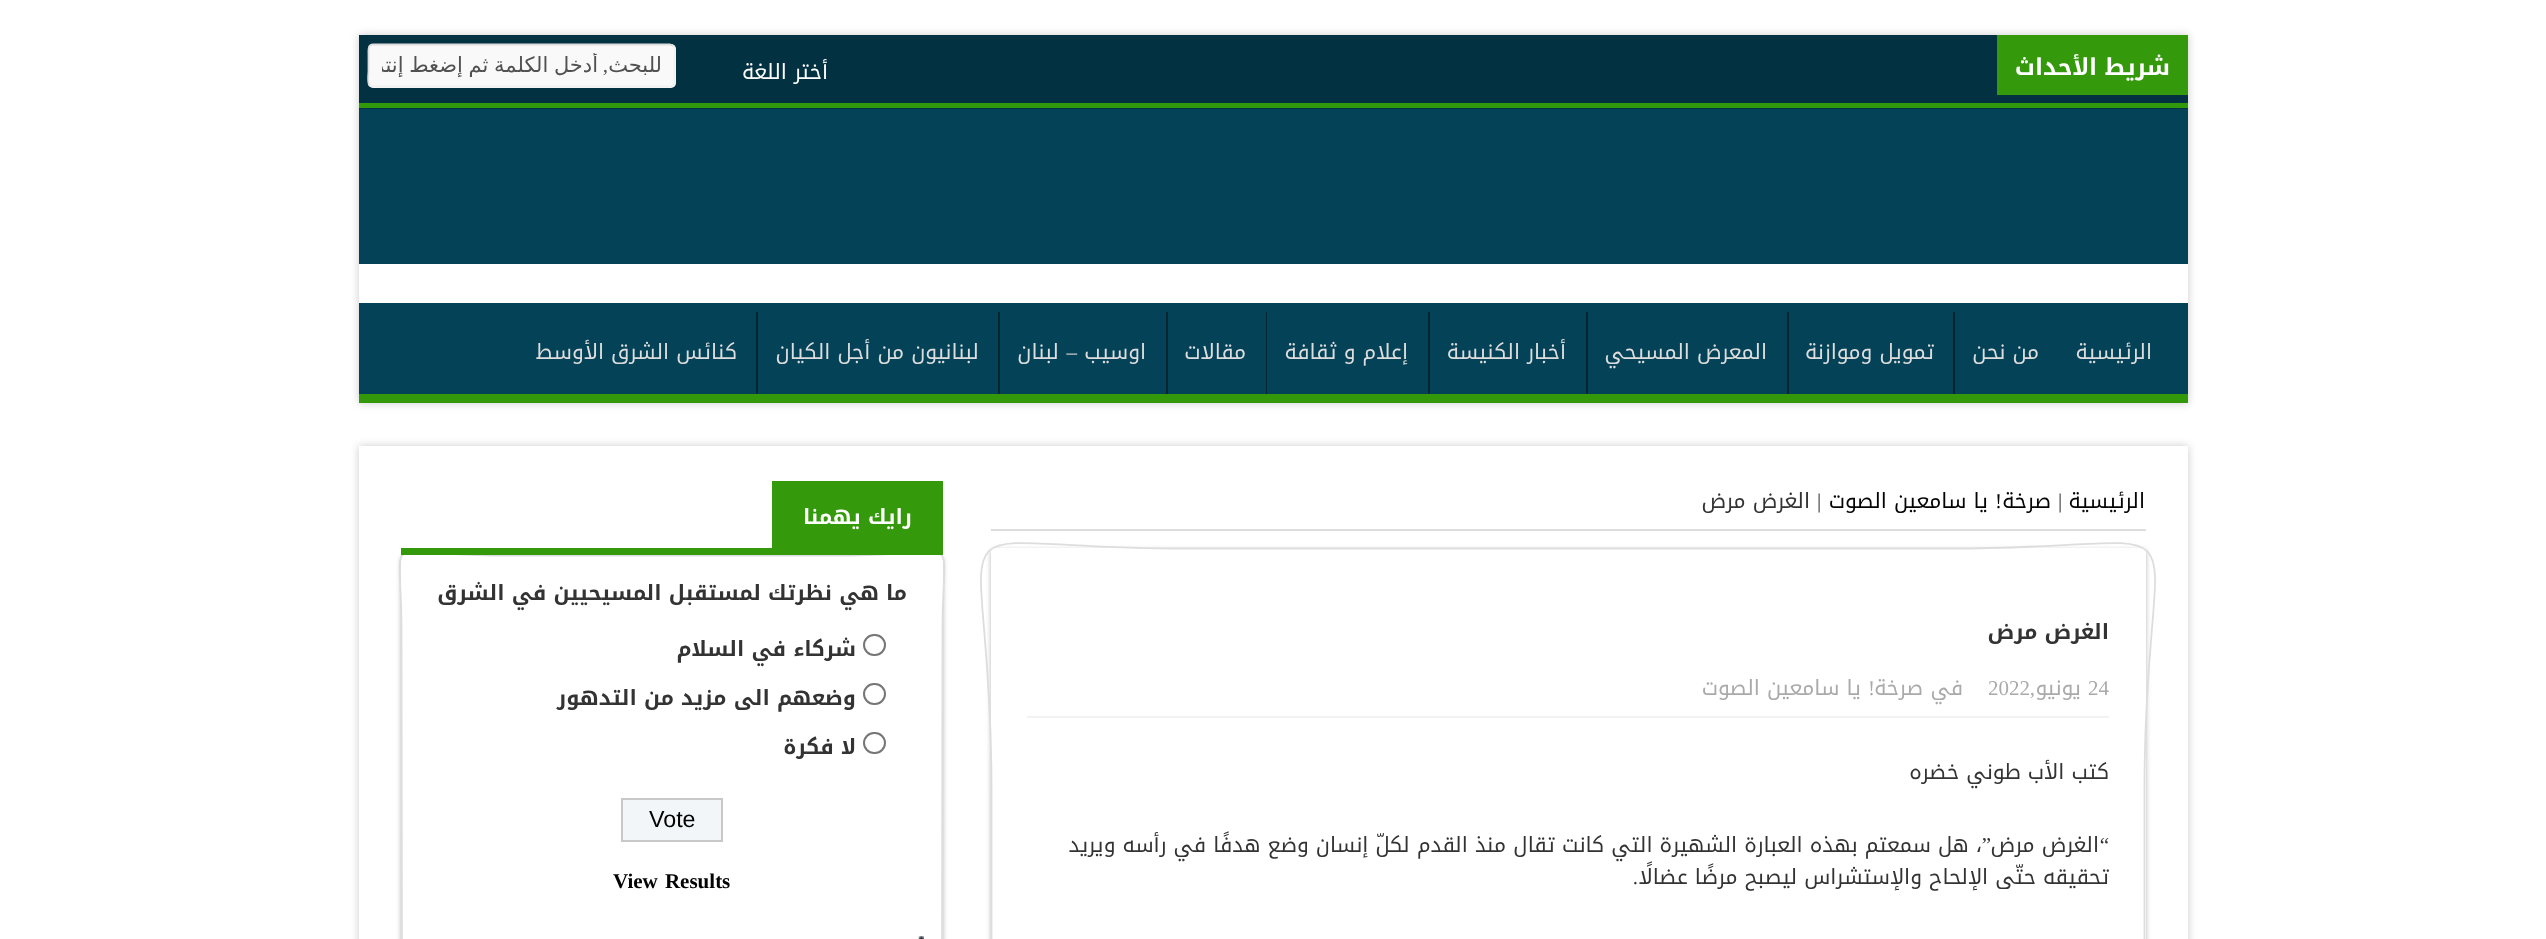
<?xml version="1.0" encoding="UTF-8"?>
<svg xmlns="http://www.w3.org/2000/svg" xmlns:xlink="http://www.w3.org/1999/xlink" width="2546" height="939">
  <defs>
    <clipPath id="clip1"><path d="M 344 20 h 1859 v 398 h -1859 z m 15 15 h 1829 v 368 h -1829 z" clip-rule="evenodd" /></clipPath>
    <clipPath id="clip2"><path d="M 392 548 h 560 v 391 h -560 z m 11 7 h 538 c 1 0 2 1 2 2 v 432 c 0 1 -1 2 -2 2 h -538 c -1 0 -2 -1 -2 -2 v -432 c 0 -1 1 -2 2 -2 z" clip-rule="evenodd" /></clipPath>
    <clipPath id="clip3"><rect x="382" y="53" width="280" height="26" /></clipPath>
  </defs>
  <rect width="100%" height="100%" fill="#ffffff" />
  <g clip-path="url(#clip1)">
    <rect x="359" y="35" width="1829" height="368" fill="#cacaca" filter="blur(4.5px)" />
  </g>
  <rect x="359" y="35" width="1829" height="74" fill="#023141" />
  <rect x="359" y="103" width="1829" height="5" fill="#319a0a" />
  <rect x="1997" y="35" width="191" height="60" fill="#34990b" />
  <rect x="368" y="44" width="308" height="44" rx="5" fill="#f9f9f9" />
  <path d="M 673.5 46 c 2.5 2.5 1 11 1 14 v 16.5 c 0 3.5 1 10 -4.5 10 h -297 l -3.5 -1" fill="none" stroke="#f1f1f1" stroke-width="1.8" />
  <path d="M 369.5 85.5 c -2.5 -3 -1 -11.5 -1 -14.5 v -16.5 c 0 -3.5 -1 -10 4.5 -10 h 297 l 3.5 1.5" fill="none" stroke="#dddddd" stroke-width="1.8" />
  <rect x="359" y="109" width="1829" height="155" fill="#044257" />
  <rect x="359" y="303" width="1829" height="91" fill="#044257" />
  <rect x="359" y="394" width="1829" height="9" fill="#33990b" />
  <rect x="1953" y="312" width="2" height="82" fill="#032530" />
  <rect x="1787" y="312" width="2" height="82" fill="#032530" />
  <rect x="1586" y="312" width="2" height="82" fill="#032530" />
  <rect x="1428" y="312" width="2" height="82" fill="#032530" />
  <rect x="1266" y="312" width="1" height="82" fill="#032530" />
  <rect x="1166" y="312" width="2" height="82" fill="#032530" />
  <rect x="998" y="312" width="2" height="82" fill="#032530" />
  <rect x="756" y="312" width="2" height="82" fill="#032530" />
  <rect x="359" y="446" width="1829" height="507" fill="#cacaca" filter="blur(4.5px)" />
  <rect x="359" y="446" width="1829" height="493" fill="#ffffff" />
  <rect x="991" y="529" width="1155" height="2" fill="#dddddd" />
  <rect x="991" y="550" width="1155" height="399" rx="2" fill="#b5b5b5" filter="blur(2.5px)" />
  <rect x="991" y="548" width="1155" height="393" rx="2" fill="#ffffff" />
  <path d="M 991.5 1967.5 v -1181.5 c 0 -300.5 -78.5 -237.5 192.5 -237.5 h 768 c 271 0 192.5 -63 192.5 237.5 v 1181.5" fill="none" stroke="#dddddd" stroke-width="1.8" />
  <rect x="1027" y="716" width="1082" height="2" fill="#f2f2f2" />
  <g clip-path="url(#clip2)">
    <rect x="401" y="557" width="542" height="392" rx="2" fill="#b5b5b5" filter="blur(2.5px)" />
  </g>
  <path d="M 402 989.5 l -0.5 -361 c 0 -102.5 -23 -73 91 -73 h 359 c 114 0 91 -29.5 91 73 l -0.5 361" fill="none" stroke="#dddddd" stroke-width="1.8" />
  <rect x="401" y="548" width="542" height="7" fill="#34990b" />
  <rect x="772" y="481" width="171" height="67" fill="#34990b" />
  <rect x="864" y="635" width="21" height="20" rx="10" fill="none" stroke="#767676" stroke-width="2" />
  <rect x="864" y="684" width="21" height="20" rx="10" fill="none" stroke="#767676" stroke-width="2" />
  <rect x="864" y="733" width="21" height="20" rx="10" fill="none" stroke="#767676" stroke-width="2" />
  <rect x="622" y="799" width="100" height="42" fill="#f3f6f8" stroke="#c8c8c8" stroke-width="2" />
  <image x="918" y="936" width="6" height="3" xlink:href="image1.png" />
  <text x="2170" y="75" style="font-family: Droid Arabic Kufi; font-size: 23.25px; font-weight: bold; direction: rtl; fill: #ffffff">شريط الأحداث</text>
  <text x="828" y="79" style="font-family: Droid Arabic Kufi; font-size: 21px; direction: rtl; fill: #ffffff">أختر اللغة</text>
  <text x="662" y="72" style="font-family: DejaVu Sans; font-size: 21px; direction: rtl; fill: #515151">للبحث</text>
  <text x="608" y="72" style="font-family: Liberation Serif; font-size: 21px; direction: rtl; fill: #515151">,</text>
  <g clip-path="url(#clip3)">
    <text x="598" y="72" word-spacing="-1" style="font-family: DejaVu Sans; font-size: 21px; direction: rtl; fill: #515151">أدخل الكلمة ثم إضغط إنتر</text>
  </g>
  <text x="2152" y="359" style="font-family: Droid Arabic Kufi; font-size: 21px; direction: rtl; fill: #dddddd">الرئيسية</text>
  <text x="2039" y="359" style="font-family: Droid Arabic Kufi; font-size: 21px; direction: rtl; fill: #dddddd">من نحن</text>
  <text x="1934" y="359" style="font-family: Droid Arabic Kufi; font-size: 21px; direction: rtl; fill: #dddddd">تمويل وموازنة</text>
  <text x="1767" y="359" style="font-family: Droid Arabic Kufi; font-size: 21px; direction: rtl; fill: #dddddd">المعرض المسيحي</text>
  <text x="1566" y="359" style="font-family: Droid Arabic Kufi; font-size: 21px; direction: rtl; fill: #dddddd">أخبار الكنيسة</text>
  <text x="1408" y="359" style="font-family: Droid Arabic Kufi; font-size: 21px; direction: rtl; fill: #dddddd">إعلام و ثقافة</text>
  <text x="1246" y="359" style="font-family: Droid Arabic Kufi; font-size: 21px; direction: rtl; fill: #dddddd">مقالات</text>
  <text x="1146" y="359" style="font-family: Droid Arabic Kufi; font-size: 21px; direction: rtl; fill: #dddddd">اوسيب</text>
  <text x="1077" y="359" style="font-family: Liberation Serif; font-size: 21px; direction: rtl; fill: #dddddd">–</text>
  <text x="1059" y="359" style="font-family: Droid Arabic Kufi; font-size: 21px; direction: rtl; fill: #dddddd">لبنان</text>
  <text x="979" y="359" style="font-family: Droid Arabic Kufi; font-size: 21px; direction: rtl; fill: #dddddd">لبنانيون من أجل الكيان</text>
  <text x="737" y="359" style="font-family: Droid Arabic Kufi; font-size: 21px; direction: rtl; fill: #dddddd">كنائس الشرق الأوسط</text>
  <text x="2145" y="508" style="font-family: Droid Arabic Kufi; font-size: 21px; direction: rtl; fill: #040404">الرئيسية</text>
  <text x="2058" y="508" style="font-family: Liberation Serif; font-size: 21px; fill: #333333">|</text>
  <text x="2051" y="508" style="font-family: Droid Arabic Kufi; font-size: 21px; direction: rtl; fill: #040404">صرخة</text>
  <text x="2002" y="508" style="font-family: Liberation Serif; font-size: 21px; direction: rtl; fill: #040404">!</text>
  <text x="1988" y="508" style="font-family: Droid Arabic Kufi; font-size: 21px; direction: rtl; fill: #040404">يا سامعين الصوت</text>
  <text x="1817" y="508" style="font-family: Liberation Serif; font-size: 21px; fill: #333333">|</text>
  <text x="1810" y="508" style="font-family: Droid Arabic Kufi; font-size: 21px; direction: rtl; fill: #333333">الغرض مرض</text>
  <text x="2109" y="639" style="font-family: Droid Arabic Kufi; font-size: 21px; font-weight: bold; direction: rtl; fill: #333333">الغرض مرض</text>
  <text x="2088" y="695" style="font-family: Liberation Serif; font-size: 21px; fill: #aaaaaa">24</text>
  <text x="2081" y="695" style="font-family: Droid Arabic Kufi; font-size: 21px; direction: rtl; fill: #aaaaaa">يونيو</text>
  <text x="2035" y="695" style="font-family: Liberation Serif; font-size: 21px; direction: rtl; fill: #aaaaaa">,</text>
  <text x="1988" y="695" style="font-family: Liberation Serif; font-size: 21px; fill: #aaaaaa">2022</text>
  <text x="1963" y="695" style="font-family: Droid Arabic Kufi; font-size: 21px; direction: rtl; fill: #aaaaaa">في</text>
  <text x="1923" y="695" style="font-family: Droid Arabic Kufi; font-size: 21px; direction: rtl; fill: #aaaaaa">صرخة</text>
  <text x="1875" y="695" style="font-family: Liberation Serif; font-size: 21px; direction: rtl; fill: #aaaaaa">!</text>
  <text x="1861" y="695" style="font-family: Droid Arabic Kufi; font-size: 21px; direction: rtl; fill: #aaaaaa">يا سامعين الصوت</text>
  <text x="2109" y="779" style="font-family: Droid Arabic Kufi; font-size: 21px; direction: rtl; fill: #333333">كتب الأب طوني خضره</text>
  <text x="2109" y="852" style="font-family: Liberation Serif; font-size: 21px; direction: rtl; fill: #333333">“</text>
  <text x="2099" y="852" style="font-family: Droid Arabic Kufi; font-size: 21px; direction: rtl; fill: #333333">الغرض مرض</text>
  <text x="1991" y="852" style="font-family: Liberation Serif; font-size: 21px; direction: rtl; fill: #333333">”</text>
  <text x="1982" y="852" style="font-family: Droid Arabic Kufi; font-size: 21px; direction: rtl; fill: #333333">، هل سمعتم بهذه العبارة الشهيرة التي كانت تقال منذ القدم لكلّ إنسان وضع هدفًا في رأسه ويريد</text>
  <text x="2109" y="884" style="font-family: Droid Arabic Kufi; font-size: 21px; direction: rtl; fill: #333333">تحقيقه حتّى الإلحاح والإستشراس ليصبح مرضًا عضالًا</text>
  <text x="1638" y="884" style="font-family: Liberation Serif; font-size: 21px; direction: rtl; fill: #333333">.</text>
  <text x="912" y="524" style="font-family: Droid Arabic Kufi; font-size: 21px; font-weight: bold; direction: rtl; fill: #ffffff">رايك يهمنا</text>
  <text x="907" y="600" style="font-family: Droid Arabic Kufi; font-size: 21px; font-weight: bold; direction: rtl; fill: #333333">ما هي نظرتك لمستقبل المسيحيين في الشرق</text>
  <text x="856" y="656" style="font-family: Droid Arabic Kufi; font-size: 21px; font-weight: bold; direction: rtl; fill: #333333">شركاء في السلام</text>
  <text x="856" y="705" style="font-family: Droid Arabic Kufi; font-size: 21px; font-weight: bold; direction: rtl; fill: #333333">وضعهم الى مزيد من التدهور</text>
  <text x="856" y="754" style="font-family: Droid Arabic Kufi; font-size: 21px; font-weight: bold; direction: rtl; fill: #333333">لا فكرة</text>
  <text x="649" y="827" style="font-family: Liberation Sans; font-size: 23.25px; fill: #040404">Vote</text>
  <text x="613" y="888" word-spacing="2" style="font-family: Liberation Serif; font-size: 21px; font-weight: bold; fill: #040404">View Results</text>
</svg>
